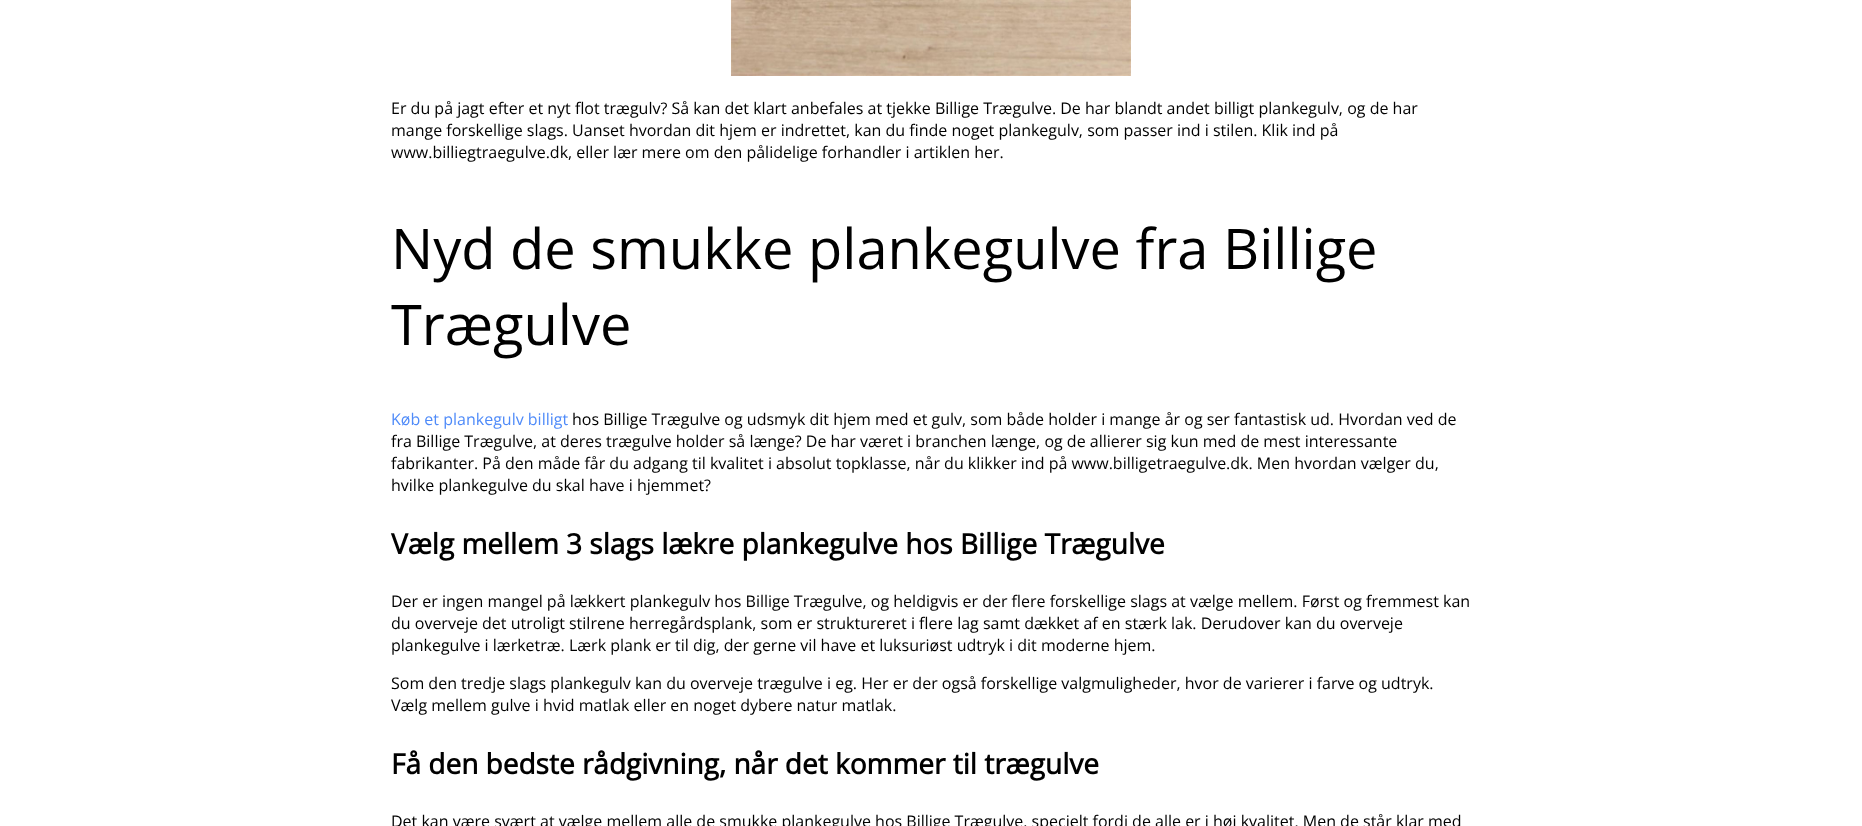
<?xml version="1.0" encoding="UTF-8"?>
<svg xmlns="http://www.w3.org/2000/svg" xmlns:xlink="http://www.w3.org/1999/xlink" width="1862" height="826">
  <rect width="100%" height="100%" fill="#ffffff" />
  <image x="731" y="0" width="400" height="76" xlink:href="image1.png" />
  <text x="391" y="114" style="font-family: Open Sans; font-size: 16px; fill: #000000">Er du på jagt efter et nyt flot trægulv? Så kan det klart anbefales at tjekke Billige Trægulve. De har blandt andet billigt plankegulv, og de har</text>
  <text x="391" y="136" style="font-family: Open Sans; font-size: 16px; fill: #000000">mange forskellige slags. Uanset hvordan dit hjem er indrettet, kan du finde noget plankegulv, som passer ind i stilen. Klik ind på</text>
  <text x="391" y="158" style="font-family: Open Sans; font-size: 16px; fill: #000000">www.billiegtraegulve.dk, eller lær mere om den pålidelige forhandler i artiklen her.</text>
  <text x="391" y="269" style="font-family: Open Sans; font-size: 56px; fill: #000000">Nyd de smukke plankegulve fra Billige</text>
  <text x="391" y="345" style="font-family: Open Sans; font-size: 56px; fill: #000000">Trægulve</text>
  <text x="391" y="425" style="font-family: Open Sans; font-size: 16px; fill: #4f8bf9">Køb et plankegulv billigt</text>
  <text x="572" y="425" style="font-family: Open Sans; font-size: 16px; fill: #000000">hos Billige Trægulve og udsmyk dit hjem med et gulv, som både holder i mange år og ser fantastisk ud. Hvordan ved de</text>
  <text x="391" y="447" style="font-family: Open Sans; font-size: 16px; fill: #000000">fra Billige Trægulve, at deres trægulve holder så længe? De har været i branchen længe, og de allierer sig kun med de mest interessante</text>
  <text x="391" y="469" style="font-family: Open Sans; font-size: 16px; fill: #000000">fabrikanter. På den måde får du adgang til kvalitet i absolut topklasse, når du klikker ind på www.billigetraegulve.dk. Men hvordan vælger du,</text>
  <text x="391" y="491" style="font-family: Open Sans; font-size: 16px; fill: #000000">hvilke plankegulve du skal have i hjemmet?</text>
  <text x="391" y="554" style="font-family: Open Sans; font-size: 28px; font-weight: bold; fill: #000000">Vælg mellem 3 slags lækre plankegulve hos Billige Trægulve</text>
  <text x="391" y="607" style="font-family: Open Sans; font-size: 16px; fill: #000000">Der er ingen mangel på lækkert plankegulv hos Billige Trægulve, og heldigvis er der flere forskellige slags at vælge mellem. Først og fremmest kan</text>
  <text x="391" y="629" style="font-family: Open Sans; font-size: 16px; fill: #000000">du overveje det utroligt stilrene herregårdsplank, som er struktureret i flere lag samt dækket af en stærk lak. Derudover kan du overveje</text>
  <text x="391" y="651" style="font-family: Open Sans; font-size: 16px; fill: #000000">plankegulve i lærketræ. Lærk plank er til dig, der gerne vil have et luksuriøst udtryk i dit moderne hjem.</text>
  <text x="391" y="689" style="font-family: Open Sans; font-size: 16px; fill: #000000">Som den tredje slags plankegulv kan du overveje trægulve i eg. Her er der også forskellige valgmuligheder, hvor de varierer i farve og udtryk.</text>
  <text x="391" y="711" style="font-family: Open Sans; font-size: 16px; fill: #000000">Vælg mellem gulve i hvid matlak eller en noget dybere natur matlak.</text>
  <text x="391" y="774" style="font-family: Open Sans; font-size: 28px; font-weight: bold; fill: #000000">Få den bedste rådgivning, når det kommer til trægulve</text>
  <text x="391" y="827" style="font-family: Open Sans; font-size: 16px; fill: #000000">Det kan være svært at vælge mellem alle de smukke plankegulve hos Billige Trægulve, specielt fordi de alle er i høj kvalitet. Men de står klar med</text>
</svg>
